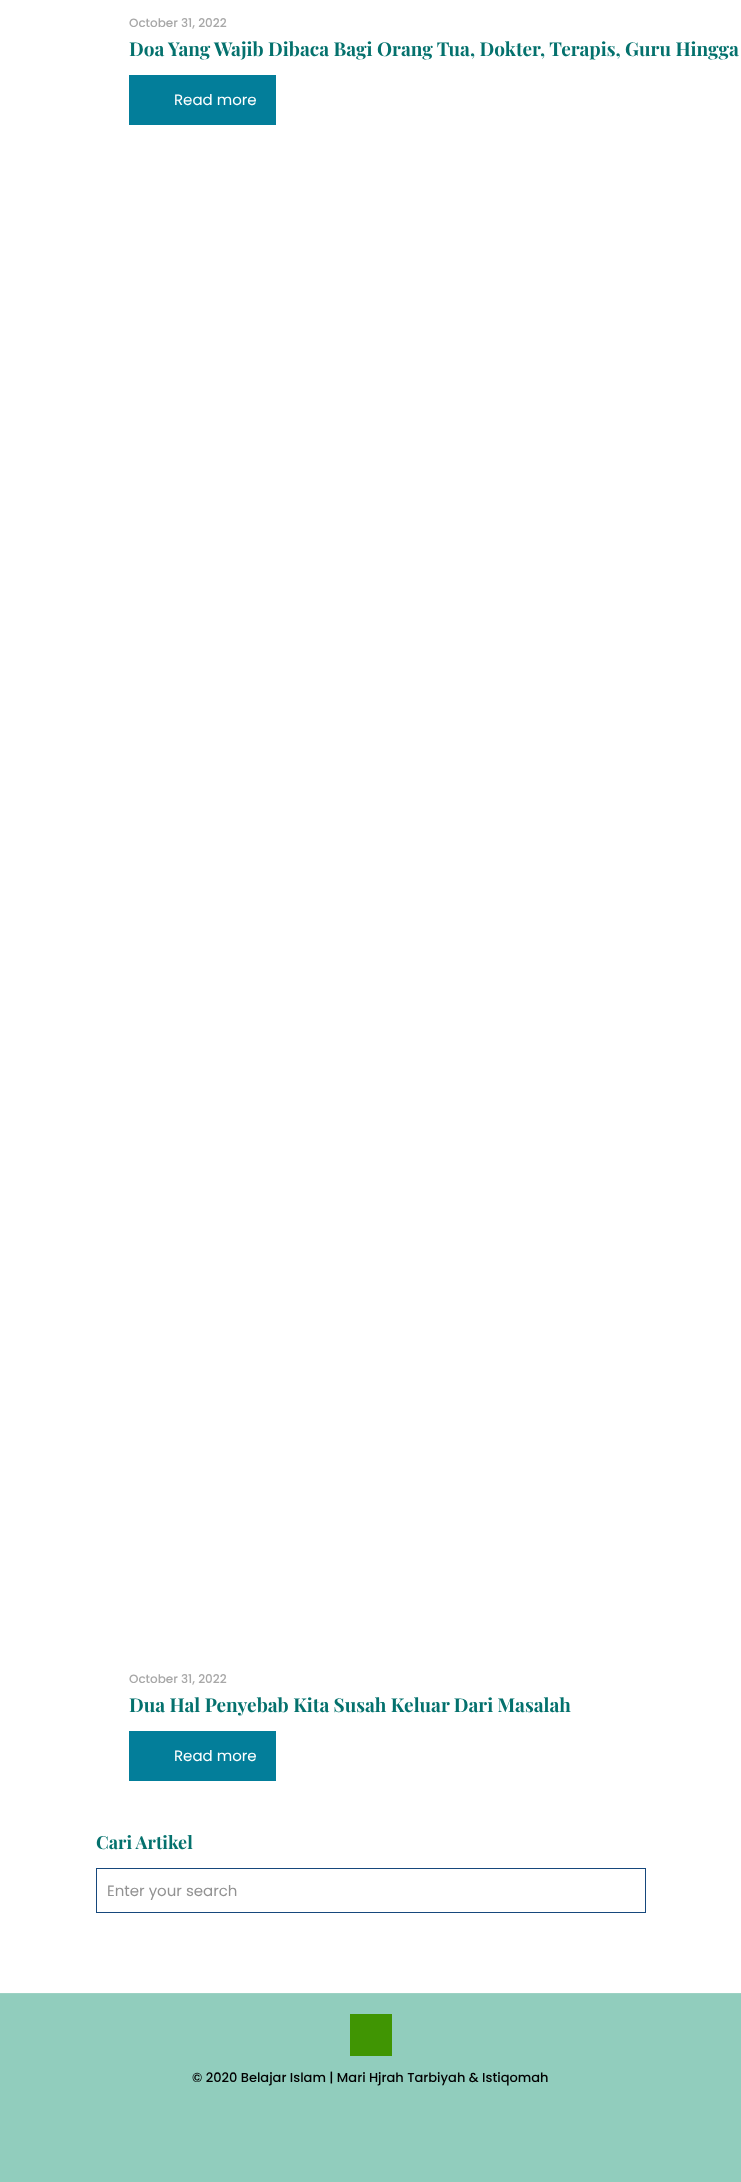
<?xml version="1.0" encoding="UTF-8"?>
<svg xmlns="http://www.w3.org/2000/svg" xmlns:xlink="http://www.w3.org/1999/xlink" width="741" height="2182">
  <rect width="100%" height="100%" fill="#ffffff" />
  <rect x="129" y="75" width="147" height="50" fill="#037e9a" />
  <rect x="129" y="1731" width="147" height="50" fill="#037e9a" />
  <rect x="96.5" y="1868.5" width="549" height="44" fill="none" stroke="#16487c" />
  <rect y="1994" width="741" height="188" fill="#91cdbd" />
  <rect y="1993" width="741" height="1" fill="#9cd2c4" />
  <rect x="350" y="2014" width="42" height="42" fill="#409503" />
  <text x="129" y="27" style="font-family: Poppins; font-size: 12px; font-weight: 500; fill: #a8a8a8">October 31, 2022</text>
  <text x="129" y="56" style="font-family: Playfair Display; font-size: 19px; font-weight: bold; fill: #04716d">Doa Yang Wajib Dibaca Bagi Orang Tua, Dokter, Terapis, Guru Hingga</text>
  <text x="174" y="105" style="font-family: Poppins; font-size: 15px; fill: #ffffff">Read more</text>
  <text x="129" y="1683" style="font-family: Poppins; font-size: 12px; font-weight: 500; fill: #a8a8a8">October 31, 2022</text>
  <text x="129" y="1712" style="font-family: Playfair Display; font-size: 19px; font-weight: bold; fill: #04716d">Dua Hal Penyebab Kita Susah Keluar Dari Masalah</text>
  <text x="174" y="1761" style="font-family: Poppins; font-size: 15px; fill: #ffffff">Read more</text>
  <text x="96" y="1849" style="font-family: Playfair Display; font-size: 18px; font-weight: bold; fill: #04716d">Cari Artikel</text>
  <text x="107" y="1896" style="font-family: Poppins; font-size: 15px; fill: #929292">Enter your search</text>
  <text x="192" y="2082" style="font-family: Poppins; font-size: 13px; font-weight: 500; fill: #000000">© 2020 Belajar Islam | Mari Hjrah Tarbiyah &amp; Istiqomah</text>
</svg>
